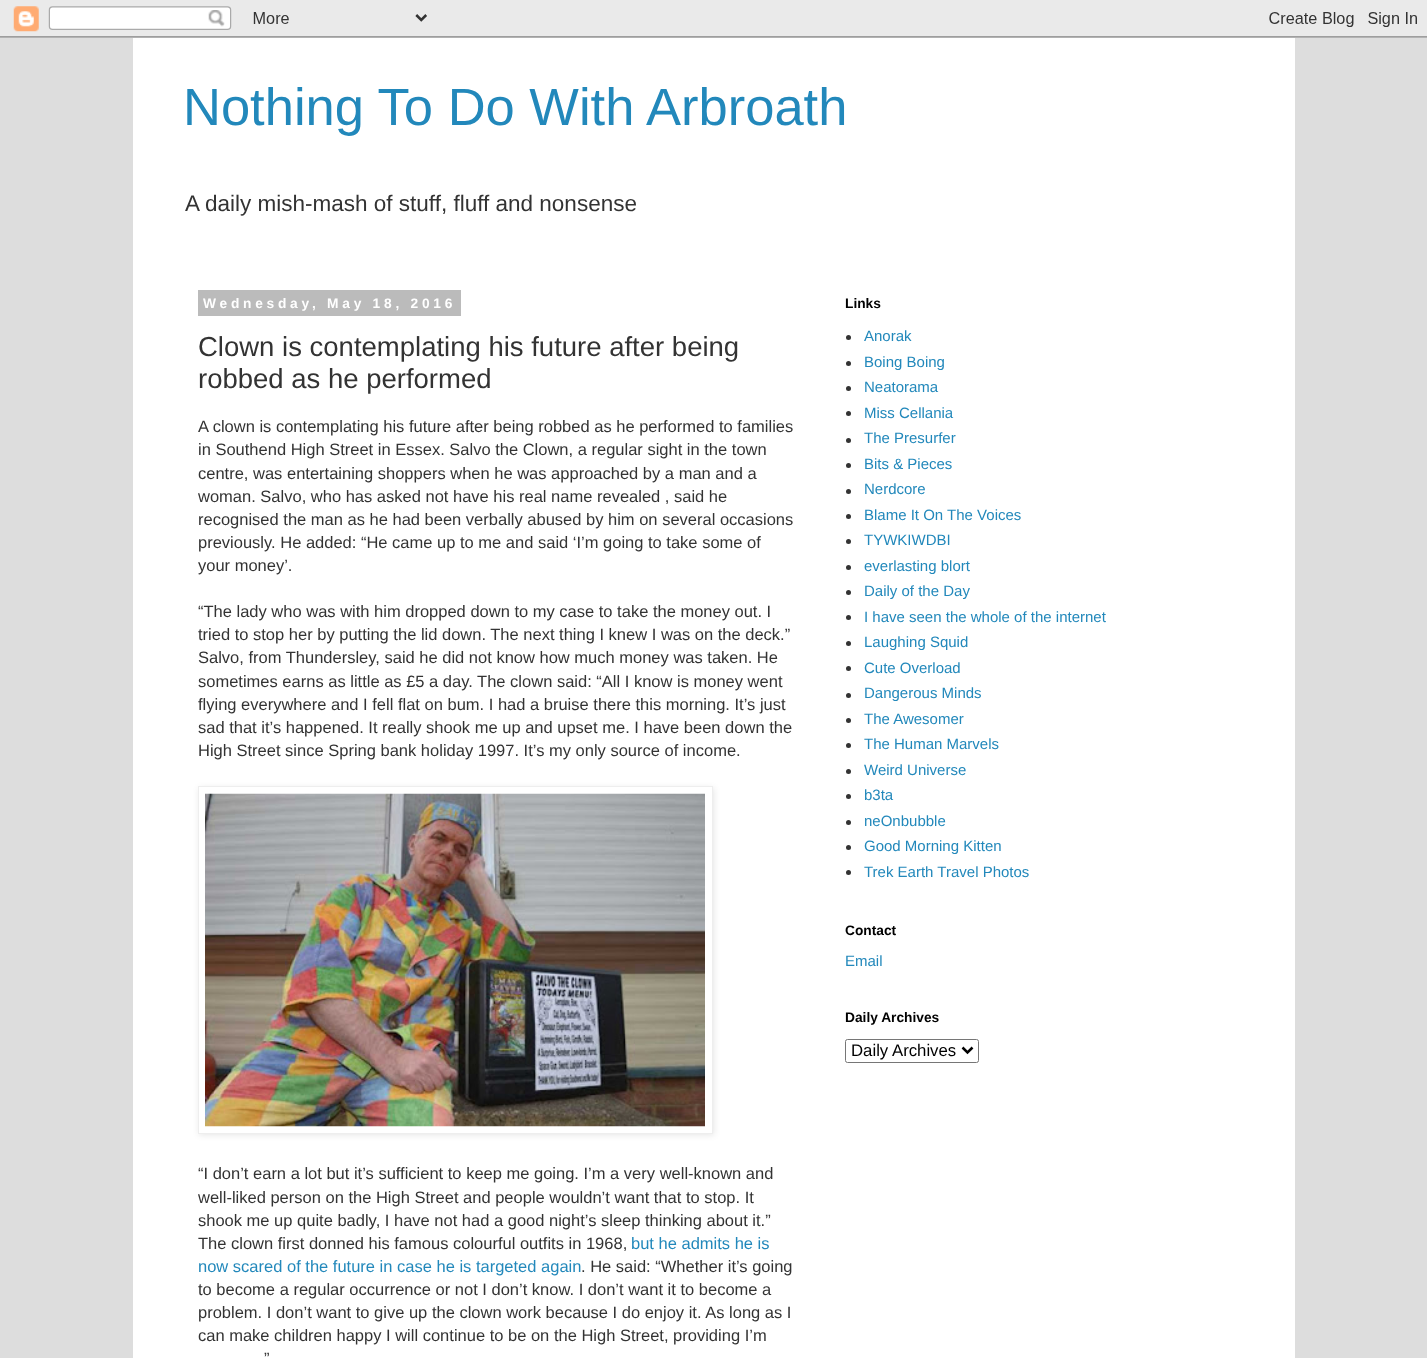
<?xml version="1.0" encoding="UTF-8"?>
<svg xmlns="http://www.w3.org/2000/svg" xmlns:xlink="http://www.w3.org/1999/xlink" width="1427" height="1358">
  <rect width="100%" height="100%" fill="#dddddd" />
  <image x="0" y="0" width="1427" height="38" xlink:href="image1.png" />
  <rect x="133" y="38" width="1162" height="1320" fill="#ffffff" />
  <rect x="198" y="290" width="263" height="26" fill="#bbbbbb" />
  <rect x="199" y="788" width="515" height="347" fill="#000000" fill-opacity="0.1" filter="blur(3px)" />
  <rect x="198.5" y="786.5" width="514" height="347" fill="#ffffff" stroke="#eeeeee" />
  <image x="205" y="793" width="500" height="334" xlink:href="image2.png" />
  <circle cx="848.5" cy="337.5" r="2.5" fill="#333333" />
  <circle cx="848.5" cy="363.5" r="2.5" fill="#333333" />
  <circle cx="848.5" cy="388.5" r="2.5" fill="#333333" />
  <circle cx="848.5" cy="413.5" r="2.5" fill="#333333" />
  <circle cx="848.5" cy="440.5" r="2.5" fill="#333333" />
  <circle cx="848.5" cy="465.5" r="2.5" fill="#333333" />
  <circle cx="848.5" cy="491.5" r="2.5" fill="#333333" />
  <circle cx="848.5" cy="516.5" r="2.5" fill="#333333" />
  <circle cx="848.5" cy="541.5" r="2.5" fill="#333333" />
  <circle cx="848.5" cy="567.5" r="2.5" fill="#333333" />
  <circle cx="848.5" cy="592.5" r="2.5" fill="#333333" />
  <circle cx="848.5" cy="617.5" r="2.5" fill="#333333" />
  <circle cx="848.5" cy="643.5" r="2.5" fill="#333333" />
  <circle cx="848.5" cy="668.5" r="2.5" fill="#333333" />
  <circle cx="848.5" cy="695.5" r="2.5" fill="#333333" />
  <circle cx="848.5" cy="720.5" r="2.5" fill="#333333" />
  <circle cx="848.5" cy="745.5" r="2.5" fill="#333333" />
  <circle cx="848.5" cy="771.5" r="2.5" fill="#333333" />
  <circle cx="848.5" cy="796.5" r="2.5" fill="#333333" />
  <circle cx="848.5" cy="822.5" r="2.5" fill="#333333" />
  <circle cx="848.5" cy="847.5" r="2.5" fill="#333333" />
  <circle cx="848.5" cy="872.5" r="2.5" fill="#333333" />
  <rect x="845.5" y="1039.5" width="133" height="23" rx="2" fill="none" stroke="#767676" />
  <path d="M 962.5 1047.5 l 5 5 l 5 -5" fill="none" stroke="#000000" stroke-width="2.5" />
  <text x="183" y="125" style="font-family: Liberation Sans; font-size: 52.5px; fill: #2288bb">Nothing To Do With Arbroath</text>
  <text x="185" y="211" style="font-family: Liberation Sans; font-size: 22.5px; fill: #333333">A daily mish-mash of stuff, fluff and nonsense</text>
  <text x="203" y="308" style="font-family: Liberation Sans; font-size: 13.75px; font-weight: bold; letter-spacing: 3.75px; fill: #ffffff">Wednesday, May 18, 2016</text>
  <text x="198" y="356" style="font-family: Liberation Sans; font-size: 27.5px; fill: #333333">Clown is contemplating his future after being</text>
  <text x="198" y="388" style="font-family: Liberation Sans; font-size: 27.5px; fill: #333333">robbed as he performed</text>
  <text x="198" y="432" style="font-family: Liberation Sans; font-size: 16.5px; fill: #333333">A clown is contemplating his future after being robbed as he performed to families</text>
  <text x="198" y="455" style="font-family: Liberation Sans; font-size: 16.5px; fill: #333333">in Southend High Street in Essex. Salvo the Clown, a regular sight in the town</text>
  <text x="198" y="479" style="font-family: Liberation Sans; font-size: 16.5px; fill: #333333">centre, was entertaining shoppers when he was approached by a man and a</text>
  <text x="198" y="502" style="font-family: Liberation Sans; font-size: 16.5px; fill: #333333">woman. Salvo, who has asked not have his real name revealed , said he</text>
  <text x="198" y="525" style="font-family: Liberation Sans; font-size: 16.5px; fill: #333333">recognised the man as he had been verbally abused by him on several occasions</text>
  <text x="198" y="548" style="font-family: Liberation Sans; font-size: 16.5px; fill: #333333">previously. He added: “He came up to me and said ‘I’m going to take some of</text>
  <text x="198" y="571" style="font-family: Liberation Sans; font-size: 16.5px; fill: #333333">your money’.</text>
  <text x="198" y="617" style="font-family: Liberation Sans; font-size: 16.5px; fill: #333333">“The lady who was with him dropped down to my case to take the money out. I</text>
  <text x="198" y="640" style="font-family: Liberation Sans; font-size: 16.5px; fill: #333333">tried to stop her by putting the lid down. The next thing I knew I was on the deck.”</text>
  <text x="198" y="663" style="font-family: Liberation Sans; font-size: 16.5px; fill: #333333">Salvo, from Thundersley, said he did not know how much money was taken. He</text>
  <text x="198" y="687" style="font-family: Liberation Sans; font-size: 16.5px; fill: #333333">sometimes earns as little as £5 a day. The clown said: “All I know is money went</text>
  <text x="198" y="710" style="font-family: Liberation Sans; font-size: 16.5px; fill: #333333">flying everywhere and I fell flat on bum. I had a bruise there this morning. It’s just</text>
  <text x="198" y="733" style="font-family: Liberation Sans; font-size: 16.5px; fill: #333333">sad that it’s happened. It really shook me up and upset me. I have been down the</text>
  <text x="198" y="756" style="font-family: Liberation Sans; font-size: 16.5px; fill: #333333">High Street since Spring bank holiday 1997. It’s my only source of income.</text>
  <text x="198" y="1179" style="font-family: Liberation Sans; font-size: 16.5px; fill: #333333">“I don’t earn a lot but it’s sufficient to keep me going. I’m a very well-known and</text>
  <text x="198" y="1203" style="font-family: Liberation Sans; font-size: 16.5px; fill: #333333">well-liked person on the High Street and people wouldn’t want that to stop. It</text>
  <text x="198" y="1226" style="font-family: Liberation Sans; font-size: 16.5px; fill: #333333">shook me up quite badly, I have not had a good night’s sleep thinking about it.”</text>
  <text x="198" y="1249" style="font-family: Liberation Sans; font-size: 16.5px; fill: #333333">The clown first donned his famous colourful outfits in 1968,</text>
  <text x="631" y="1249" style="font-family: Liberation Sans; font-size: 16.5px; fill: #2288bb">but he admits he is</text>
  <text x="198" y="1272" style="font-family: Liberation Sans; font-size: 16.5px; fill: #2288bb">now scared of the future in case he is targeted again</text>
  <text x="581" y="1272" style="font-family: Liberation Sans; font-size: 16.5px; fill: #333333">. He said: “Whether it’s going</text>
  <text x="198" y="1295" style="font-family: Liberation Sans; font-size: 16.5px; fill: #333333">to become a regular occurrence or not I don’t know. I don’t want it to become a</text>
  <text x="198" y="1318" style="font-family: Liberation Sans; font-size: 16.5px; fill: #333333">problem. I don’t want to give up the clown work because I do enjoy it. As long as I</text>
  <text x="198" y="1341" style="font-family: Liberation Sans; font-size: 16.5px; fill: #333333">can make children happy I will continue to be on the High Street, providing I’m</text>
  <text x="264" y="1364" style="font-family: Liberation Sans; font-size: 16.5px; fill: #333333">”</text>
  <text x="845" y="308" style="font-family: Liberation Sans; font-size: 13.75px; font-weight: bold; fill: #000000">Links</text>
  <text x="864" y="341" style="font-family: Liberation Sans; font-size: 15px; fill: #2288bb">Anorak</text>
  <text x="864" y="367" style="font-family: Liberation Sans; font-size: 15px; fill: #2288bb">Boing Boing</text>
  <text x="864" y="392" style="font-family: Liberation Sans; font-size: 15px; fill: #2288bb">Neatorama</text>
  <text x="864" y="418" style="font-family: Liberation Sans; font-size: 15px; fill: #2288bb">Miss Cellania</text>
  <text x="864" y="443" style="font-family: Liberation Sans; font-size: 15px; fill: #2288bb">The Presurfer</text>
  <text x="864" y="469" style="font-family: Liberation Sans; font-size: 15px; fill: #2288bb">Bits &amp; Pieces</text>
  <text x="864" y="494" style="font-family: Liberation Sans; font-size: 15px; fill: #2288bb">Nerdcore</text>
  <text x="864" y="520" style="font-family: Liberation Sans; font-size: 15px; fill: #2288bb">Blame It On The Voices</text>
  <text x="864" y="545" style="font-family: Liberation Sans; font-size: 15px; fill: #2288bb">TYWKIWDBI</text>
  <text x="864" y="571" style="font-family: Liberation Sans; font-size: 15px; fill: #2288bb">everlasting blort</text>
  <text x="864" y="596" style="font-family: Liberation Sans; font-size: 15px; fill: #2288bb">Daily of the Day</text>
  <text x="864" y="622" style="font-family: Liberation Sans; font-size: 15px; fill: #2288bb">I have seen the whole of the internet</text>
  <text x="864" y="647" style="font-family: Liberation Sans; font-size: 15px; fill: #2288bb">Laughing Squid</text>
  <text x="864" y="673" style="font-family: Liberation Sans; font-size: 15px; fill: #2288bb">Cute Overload</text>
  <text x="864" y="698" style="font-family: Liberation Sans; font-size: 15px; fill: #2288bb">Dangerous Minds</text>
  <text x="864" y="724" style="font-family: Liberation Sans; font-size: 15px; fill: #2288bb">The Awesomer</text>
  <text x="864" y="749" style="font-family: Liberation Sans; font-size: 15px; fill: #2288bb">The Human Marvels</text>
  <text x="864" y="775" style="font-family: Liberation Sans; font-size: 15px; fill: #2288bb">Weird Universe</text>
  <text x="864" y="800" style="font-family: Liberation Sans; font-size: 15px; fill: #2288bb">b3ta</text>
  <text x="864" y="826" style="font-family: Liberation Sans; font-size: 15px; fill: #2288bb">neOnbubble</text>
  <text x="864" y="851" style="font-family: Liberation Sans; font-size: 15px; fill: #2288bb">Good Morning Kitten</text>
  <text x="864" y="877" style="font-family: Liberation Sans; font-size: 15px; fill: #2288bb">Trek Earth Travel Photos</text>
  <text x="845" y="935" style="font-family: Liberation Sans; font-size: 13.75px; font-weight: bold; fill: #000000">Contact</text>
  <text x="845" y="966" style="font-family: Liberation Sans; font-size: 15px; fill: #2288bb">Email</text>
  <text x="845" y="1022" style="font-family: Liberation Sans; font-size: 13.75px; font-weight: bold; fill: #000000">Daily Archives</text>
  <text x="851" y="1056" style="font-family: Liberation Sans; font-size: 16.75px; fill: #000000">Daily Archives</text>
</svg>
